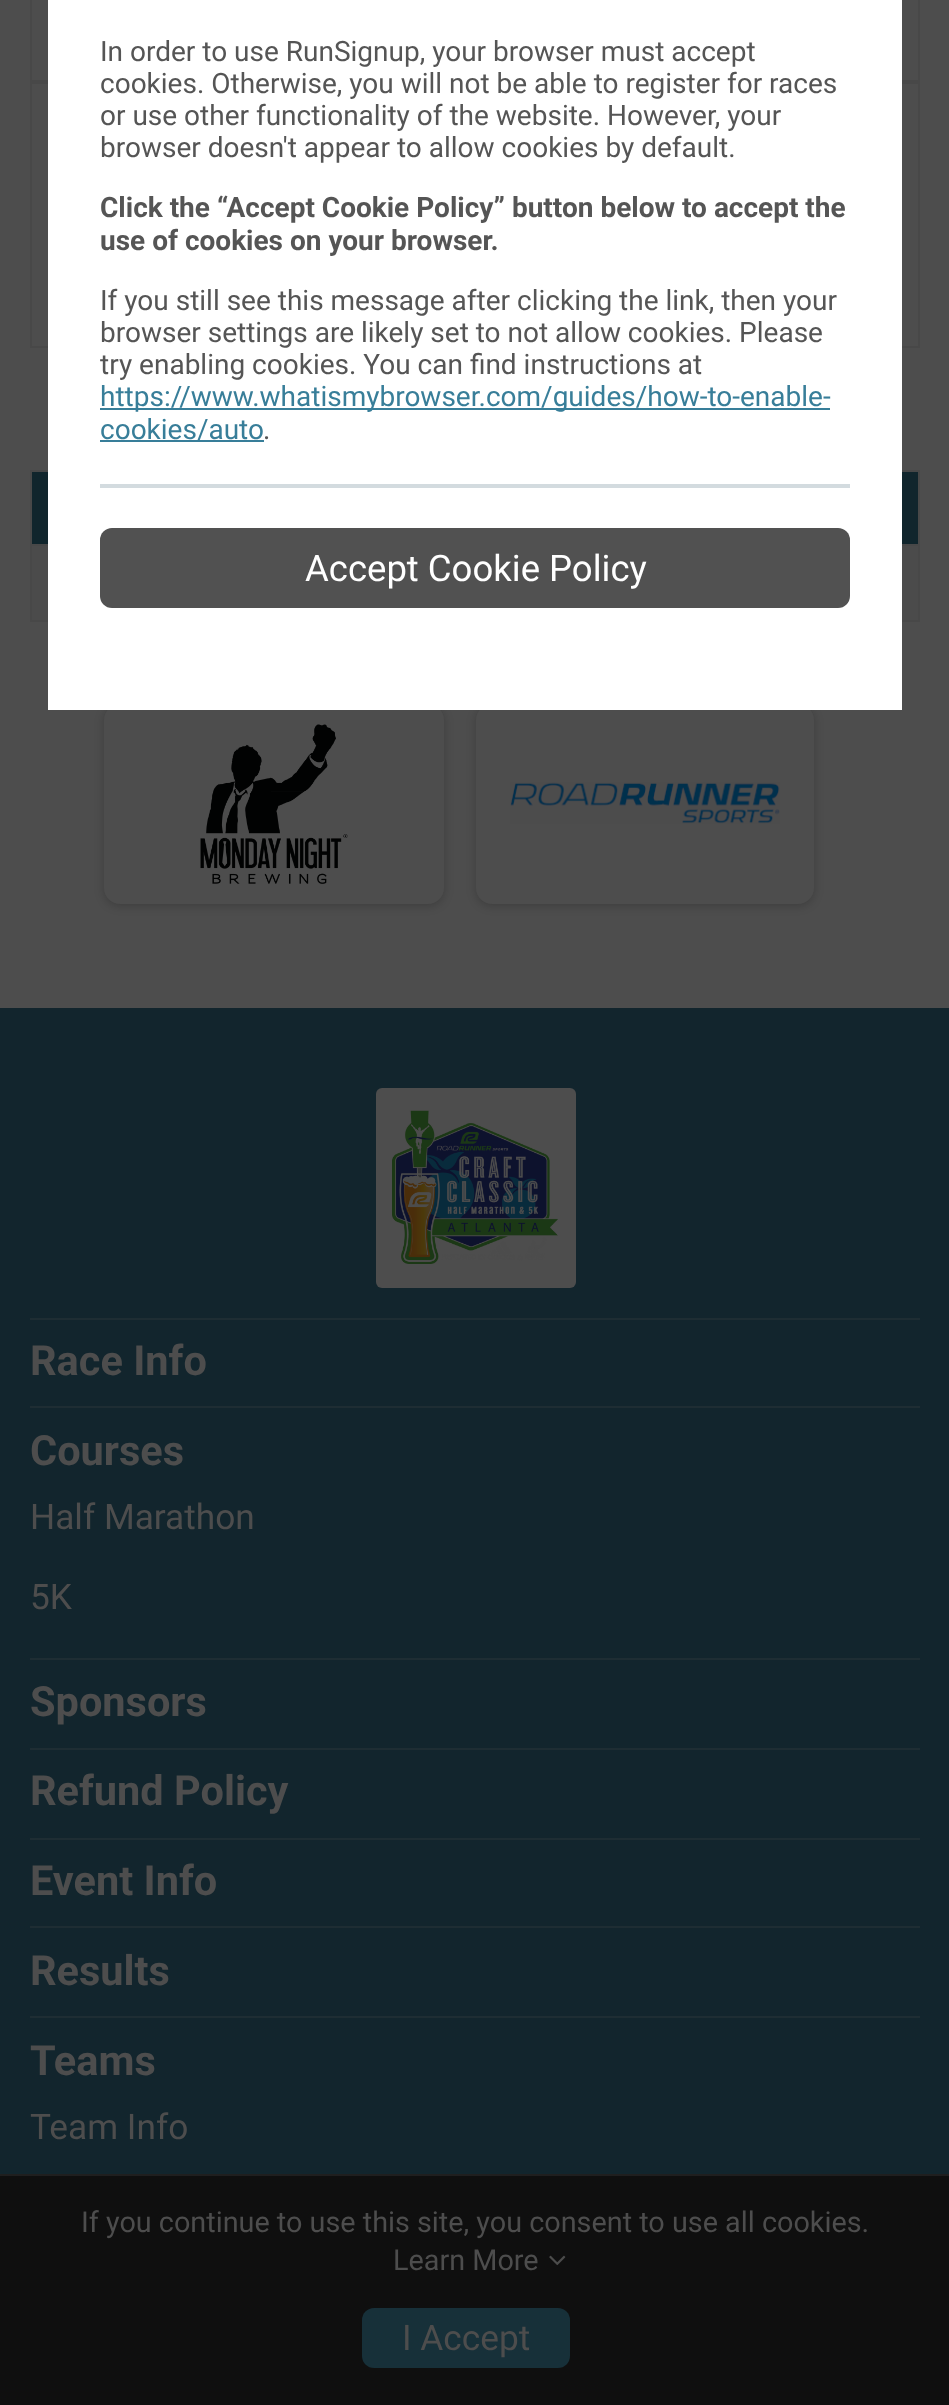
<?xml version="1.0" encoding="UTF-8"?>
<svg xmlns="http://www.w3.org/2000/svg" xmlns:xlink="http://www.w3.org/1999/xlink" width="949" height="2405">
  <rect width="100%" height="100%" fill="#4d4d4d" />
  <rect x="31" y="-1" width="888" height="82" fill="none" stroke="#484848" stroke-width="2" />
  <rect x="31" y="83" width="888" height="264" fill="none" stroke="#484848" stroke-width="2" />
  <rect x="30" y="470" width="890" height="152" fill="#484848" />
  <rect x="32" y="472" width="886" height="72" fill="#10252c" />
  <rect x="32" y="546" width="886" height="74" fill="#4b4b4b" />
  <rect x="104" y="706" width="340" height="200" rx="16" fill="#000000" fill-opacity="0.2" filter="blur(5px)" />
  <rect x="104" y="704" width="340" height="200" rx="16" fill="#4d4d4d" />
  <rect x="476" y="706" width="338" height="200" rx="16" fill="#000000" fill-opacity="0.2" filter="blur(5px)" />
  <rect x="476" y="704" width="338" height="200" rx="16" fill="#4d4d4d" />
  <rect x="49" y="-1" width="852" height="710" fill="none" stroke="#ffffff" stroke-width="2" />
  <rect x="50" width="850" height="708" fill="#ffffff" />
  <rect x="100" y="408" width="730" height="2" fill="#387e99" />
  <rect x="100" y="440" width="164" height="2" fill="#387e99" />
  <rect x="100" y="484" width="750" height="4" fill="#d3dbdf" />
  <rect x="100" y="528" width="750" height="80" rx="12" fill="#515151" />
  <image x="200" y="724" width="148" height="160" xlink:href="image1.png" />
  <image x="510" y="782" width="270" height="42" xlink:href="image2.png" />
  <rect y="1008" width="949" height="1166" fill="#12252d" />
  <rect x="376" y="1088" width="200" height="200" rx="6" fill="#4d4d4d" />
  <image x="392" y="1110" width="166" height="154" xlink:href="image3.png" />
  <rect x="30" y="1318" width="890" height="2" fill="#1e2d33" />
  <rect x="30" y="1406" width="890" height="2" fill="#1e2d33" />
  <rect x="30" y="1658" width="890" height="2" fill="#1e2d33" />
  <rect x="30" y="1748" width="890" height="2" fill="#1e2d33" />
  <rect x="30" y="1838" width="890" height="2" fill="#1e2d33" />
  <rect x="30" y="1926" width="890" height="2" fill="#1e2d33" />
  <rect x="30" y="2016" width="890" height="2" fill="#1e2d33" />
  <rect y="2176" width="949" height="229" fill="#0f0f0f" />
  <rect y="2174" width="949" height="2" fill="#1f1f1f" />
  <image x="549" y="2255" width="17" height="11" xlink:href="image4.png" />
  <rect x="362" y="2308" width="208" height="60" rx="12" fill="#173039" />
  <text x="100" y="61" style="font-family: Roboto; font-size: 28px; fill: #555555">In order to use RunSignup, your browser must accept</text>
  <text x="100" y="93" style="font-family: Roboto; font-size: 28px; fill: #555555">cookies. Otherwise, you will not be able to register for races</text>
  <text x="100" y="125" style="font-family: Roboto; font-size: 28px; fill: #555555">or use other functionality of the website. However, your</text>
  <text x="100" y="157" style="font-family: Roboto; font-size: 28px; fill: #555555">browser doesn't appear to allow cookies by default.</text>
  <text x="100" y="217" style="font-family: Roboto; font-size: 28px; font-weight: bold; fill: #555555">Click the “Accept Cookie Policy” button below to accept the</text>
  <text x="100" y="250" style="font-family: Roboto; font-size: 28px; font-weight: bold; fill: #555555">use of cookies on your browser.</text>
  <text x="100" y="310" style="font-family: Roboto; font-size: 28px; fill: #555555">If you still see this message after clicking the link, then your</text>
  <text x="100" y="342" style="font-family: Roboto; font-size: 28px; fill: #555555">browser settings are likely set to not allow cookies. Please</text>
  <text x="100" y="374" style="font-family: Roboto; font-size: 28px; fill: #555555">try enabling cookies. You can find instructions at</text>
  <text x="100" y="406" style="font-family: Roboto; font-size: 28px; fill: #387e99">https://www.whatismybrowser.com/guides/how-to-enable-</text>
  <text x="100" y="439" style="font-family: Roboto; font-size: 28px; fill: #387e99">cookies/auto</text>
  <text x="263" y="439" style="font-family: Roboto; font-size: 28px; fill: #555555">.</text>
  <text x="305" y="581" style="font-family: Roboto; font-size: 36.5px; fill: #ffffff">Accept Cookie Policy</text>
  <text x="30" y="1375" style="font-family: Roboto; font-size: 41.5px; font-weight: bold; fill: #4d4d4d">Race Info</text>
  <text x="30" y="1465" style="font-family: Roboto; font-size: 41.5px; font-weight: bold; fill: #4d4d4d">Courses</text>
  <text x="30" y="1529" style="font-family: Roboto; font-size: 35.25px; fill: #4d4d4d">Half Marathon</text>
  <text x="30" y="1609" style="font-family: Roboto; font-size: 35.25px; fill: #4d4d4d">5K</text>
  <text x="30" y="1716" style="font-family: Roboto; font-size: 41.5px; font-weight: bold; fill: #4d4d4d">Sponsors</text>
  <text x="30" y="1805" style="font-family: Roboto; font-size: 41.5px; font-weight: bold; fill: #4d4d4d">Refund Policy</text>
  <text x="30" y="1895" style="font-family: Roboto; font-size: 41.5px; font-weight: bold; fill: #4d4d4d">Event Info</text>
  <text x="30" y="1985" style="font-family: Roboto; font-size: 41.5px; font-weight: bold; fill: #4d4d4d">Results</text>
  <text x="30" y="2075" style="font-family: Roboto; font-size: 41.5px; font-weight: bold; fill: #4d4d4d">Teams</text>
  <text x="30" y="2139" style="font-family: Roboto; font-size: 35.25px; fill: #4d4d4d">Team Info</text>
  <text x="81" y="2232" style="font-family: Roboto; font-size: 28.8px; fill: #4d4d4d">If you continue to use this site, you consent to use all cookies.</text>
  <text x="393" y="2270" style="font-family: Roboto; font-size: 28.8px; fill: #4d4d4d">Learn More</text>
  <text x="402" y="2350" style="font-family: Roboto; font-size: 35.25px; fill: #4d4d4d">I Accept</text>
</svg>
